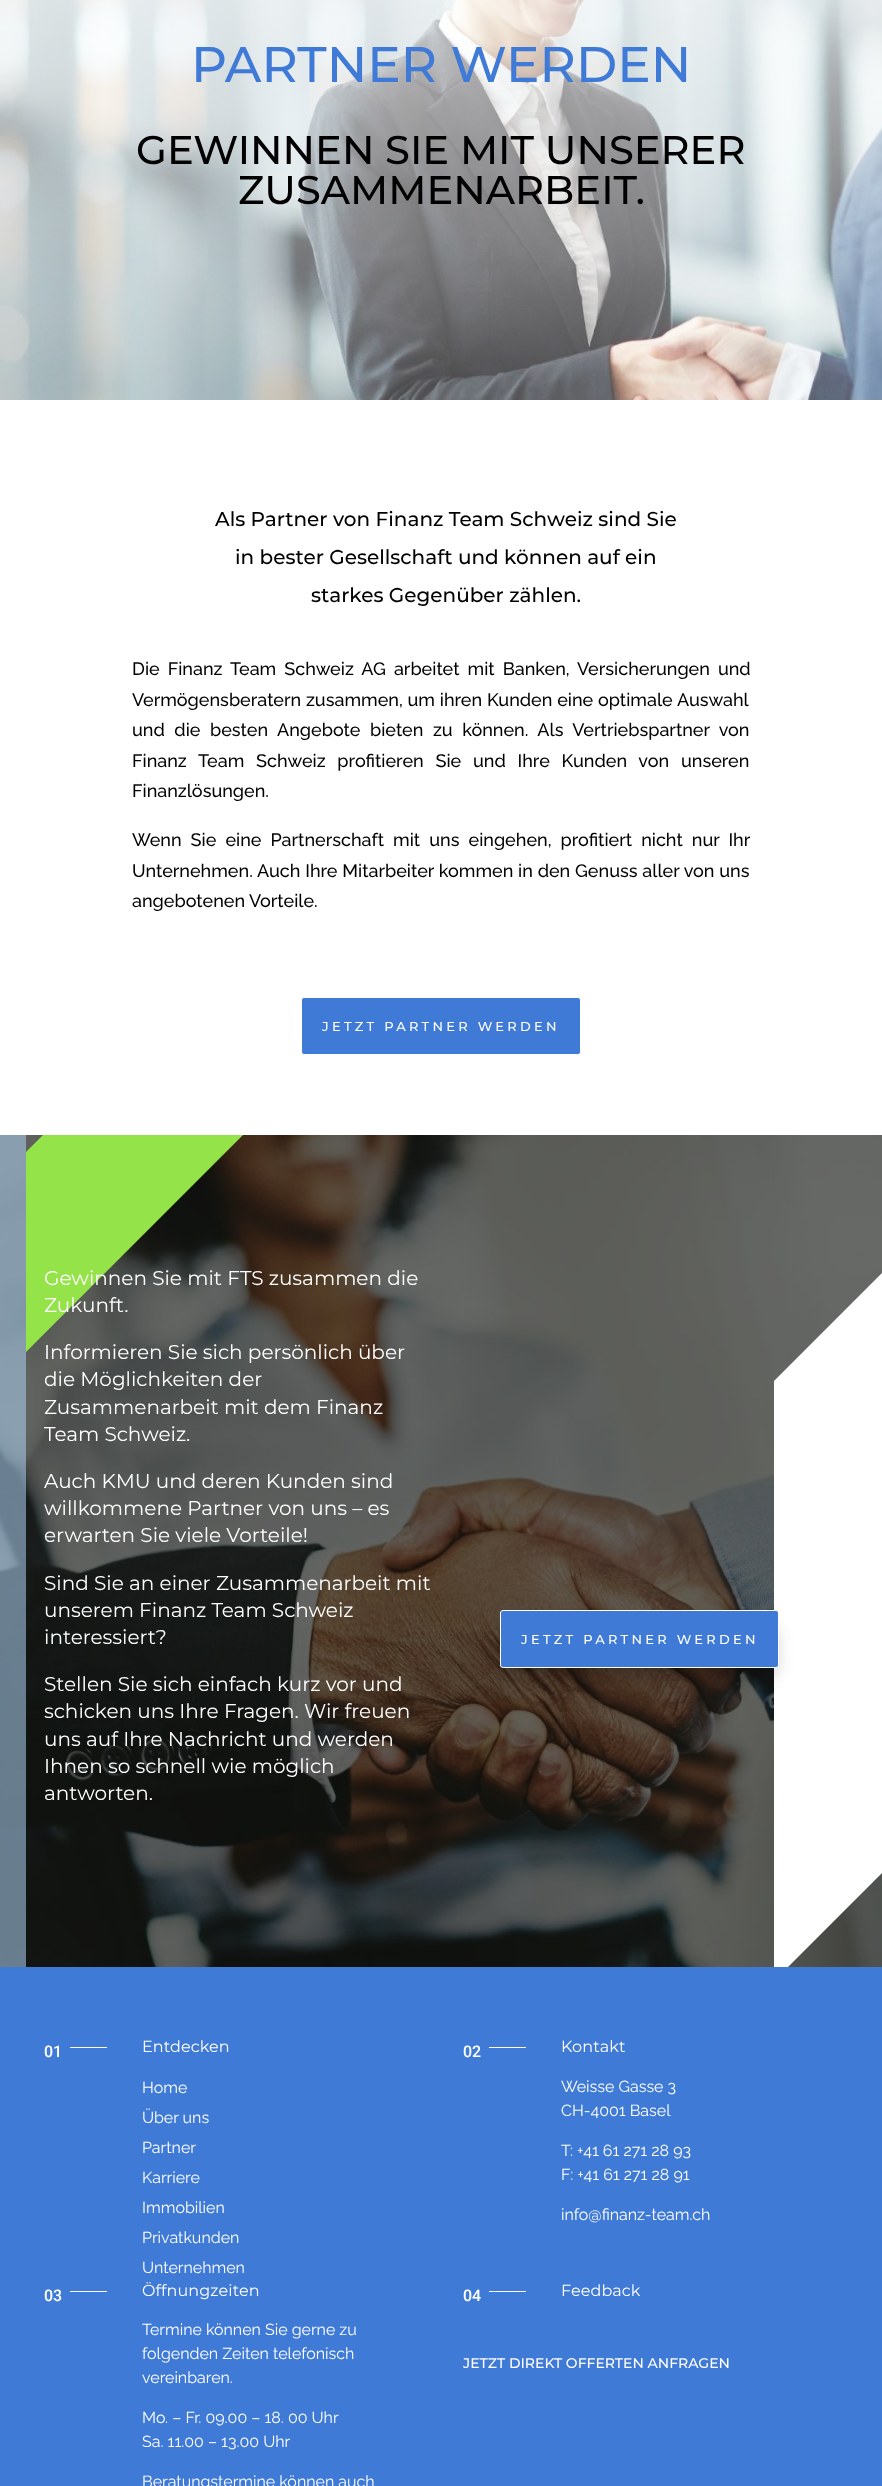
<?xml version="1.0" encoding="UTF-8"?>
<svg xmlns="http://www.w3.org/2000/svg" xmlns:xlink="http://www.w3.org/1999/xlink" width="882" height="2486">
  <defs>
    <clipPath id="clip1"><rect y="1135" width="882" height="832" /></clipPath>
  </defs>
  <rect width="100%" height="100%" fill="#ffffff" />
  <image x="0" y="0" width="882" height="400" xlink:href="image1.png" />
  <rect x="301.5" y="997.5" width="279" height="57" rx="2.5" fill="#3f7ad7" stroke="#ffffff" />
  <image x="0" y="1135" width="882" height="832" xlink:href="image2.png" />
  <rect y="1135" width="26" height="832" fill="#a7cbeb" fill-opacity="0.58" />
  <g clip-path="url(#clip1)">
    <path d="M 26 1152 l 268 -268 v 200 l -268 268 z" fill="#94e349" />
  </g>
  <path d="M 774 1381 l 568 -568 v 600 l -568 568 z" fill="#ffffff" />
  <rect x="506" y="1628" width="267" height="46" fill="#000000" fill-opacity="0.3" filter="blur(9px)" />
  <rect x="500.5" y="1610.5" width="278" height="57" rx="2.5" fill="#3f7ad7" stroke="#ffffff" />
  <rect y="1967" width="882" height="519" fill="#3f7ad7" />
  <rect x="70" y="2047" width="37" height="1" fill="#ffffff" />
  <rect x="489" y="2047" width="37" height="1" fill="#ffffff" />
  <rect x="70" y="2291" width="37" height="1" fill="#ffffff" />
  <rect x="489" y="2291" width="37" height="1" fill="#ffffff" />
  <text x="191" y="82" style="font-family: Montserrat; font-size: 50px; font-weight: 500; fill: #3f7ad7">PARTNER WERDEN</text>
  <text x="136" y="164" style="font-family: Montserrat; font-size: 40px; font-weight: 500; fill: #000000">GEWINNEN SIE MIT UNSERER</text>
  <text x="238" y="204" style="font-family: Montserrat; font-size: 40px; font-weight: 500; fill: #000000">ZUSAMMENARBEIT.</text>
  <text x="215" y="526" style="font-family: Montserrat; font-size: 20px; font-weight: 500; fill: #000000">Als Partner von Finanz Team Schweiz sind Sie</text>
  <text x="235" y="564" style="font-family: Montserrat; font-size: 20px; font-weight: 500; fill: #000000">in bester Gesellschaft und können auf ein</text>
  <text x="311" y="602" style="font-family: Montserrat; font-size: 20px; font-weight: 500; fill: #000000">starkes Gegenüber zählen.</text>
  <text x="132" y="675" word-spacing="3.5" style="font-family: Raleway; font-size: 18px; font-weight: 500; fill: #000000">Die Finanz Team Schweiz AG arbeitet mit Banken, Versicherungen und</text>
  <text x="132" y="706" word-spacing="0.25" style="font-family: Raleway; font-size: 18px; font-weight: 500; fill: #000000">Vermögensberatern zusammen, um ihren Kunden eine optimale Auswahl</text>
  <text x="132" y="736" word-spacing="5" style="font-family: Raleway; font-size: 18px; font-weight: 500; fill: #000000">und die besten Angebote bieten zu können. Als Vertriebspartner von</text>
  <text x="132" y="767" word-spacing="7.25" style="font-family: Raleway; font-size: 18px; font-weight: 500; fill: #000000">Finanz Team Schweiz profitieren Sie und Ihre Kunden von unseren</text>
  <text x="132" y="797" style="font-family: Raleway; font-size: 18px; font-weight: 500; fill: #000000">Finanzlösungen.</text>
  <text x="132" y="846" word-spacing="4.5" style="font-family: Raleway; font-size: 18px; font-weight: 500; fill: #000000">Wenn Sie eine Partnerschaft mit uns eingehen, profitiert nicht nur Ihr</text>
  <text x="132" y="877" word-spacing="0.25" style="font-family: Raleway; font-size: 18px; font-weight: 500; fill: #000000">Unternehmen. Auch Ihre Mitarbeiter kommen in den Genuss aller von uns</text>
  <text x="132" y="907" style="font-family: Raleway; font-size: 18px; font-weight: 500; fill: #000000">angebotenen Vorteile.</text>
  <text x="322" y="1031" style="font-family: Montserrat; font-size: 13px; font-weight: 500; letter-spacing: 3.25px; fill: #ffffff">JETZT PARTNER WERDEN</text>
  <text x="44" y="1285" style="font-family: Montserrat; font-size: 20px; fill: #ffffff">Gewinnen Sie mit FTS zusammen die</text>
  <text x="44" y="1312" style="font-family: Montserrat; font-size: 20px; fill: #ffffff">Zukunft.</text>
  <text x="44" y="1359" style="font-family: Montserrat; font-size: 20px; fill: #ffffff">Informieren Sie sich persönlich über</text>
  <text x="44" y="1386" style="font-family: Montserrat; font-size: 20px; fill: #ffffff">die Möglichkeiten der</text>
  <text x="44" y="1414" style="font-family: Montserrat; font-size: 20px; fill: #ffffff">Zusammenarbeit mit dem Finanz</text>
  <text x="44" y="1441" style="font-family: Montserrat; font-size: 20px; fill: #ffffff">Team Schweiz.</text>
  <text x="44" y="1488" style="font-family: Montserrat; font-size: 20px; fill: #ffffff">Auch KMU und deren Kunden sind</text>
  <text x="44" y="1515" style="font-family: Montserrat; font-size: 20px; fill: #ffffff">willkommene Partner von uns – es</text>
  <text x="44" y="1542" style="font-family: Montserrat; font-size: 20px; fill: #ffffff">erwarten Sie viele Vorteile!</text>
  <text x="44" y="1590" style="font-family: Montserrat; font-size: 20px; fill: #ffffff">Sind Sie an einer Zusammenarbeit mit</text>
  <text x="44" y="1617" style="font-family: Montserrat; font-size: 20px; fill: #ffffff">unserem Finanz Team Schweiz</text>
  <text x="44" y="1644" style="font-family: Montserrat; font-size: 20px; fill: #ffffff">interessiert?</text>
  <text x="44" y="1691" style="font-family: Montserrat; font-size: 20px; fill: #ffffff">Stellen Sie sich einfach kurz vor und</text>
  <text x="44" y="1718" style="font-family: Montserrat; font-size: 20px; fill: #ffffff">schicken uns Ihre Fragen. Wir freuen</text>
  <text x="44" y="1746" style="font-family: Montserrat; font-size: 20px; fill: #ffffff">uns auf Ihre Nachricht und werden</text>
  <text x="44" y="1773" style="font-family: Montserrat; font-size: 20px; fill: #ffffff">Ihnen so schnell wie möglich</text>
  <text x="44" y="1800" style="font-family: Montserrat; font-size: 20px; fill: #ffffff">antworten.</text>
  <text x="521" y="1644" style="font-family: Montserrat; font-size: 13px; font-weight: 500; letter-spacing: 3.25px; fill: #ffffff">JETZT PARTNER WERDEN</text>
  <text x="44" y="2057" style="font-family: Roboto; font-size: 16px; font-weight: 500; fill: #ffffff">01</text>
  <text x="142" y="2052" style="font-family: Montserrat; font-size: 16px; letter-spacing: 0.1px; fill: #ffffff">Entdecken</text>
  <text x="142" y="2093" style="font-family: Raleway; font-size: 16px; fill: #ffffff">Home</text>
  <text x="142" y="2123" style="font-family: Raleway; font-size: 16px; fill: #ffffff">Über uns</text>
  <text x="142" y="2153" style="font-family: Raleway; font-size: 16px; fill: #ffffff">Partner</text>
  <text x="142" y="2183" style="font-family: Raleway; font-size: 16px; fill: #ffffff">Karriere</text>
  <text x="142" y="2213" style="font-family: Raleway; font-size: 16px; fill: #ffffff">Immobilien</text>
  <text x="142" y="2243" style="font-family: Raleway; font-size: 16px; fill: #ffffff">Privatkunden</text>
  <text x="142" y="2273" style="font-family: Raleway; font-size: 16px; fill: #ffffff">Unternehmen</text>
  <text x="463" y="2057" style="font-family: Roboto; font-size: 16px; font-weight: 500; fill: #ffffff">02</text>
  <text x="561" y="2052" style="font-family: Montserrat; font-size: 16px; letter-spacing: 0.1px; fill: #ffffff">Kontakt</text>
  <text x="561" y="2092" style="font-family: Raleway; font-size: 16px; fill: #ffffff">Weisse Gasse 3</text>
  <text x="561" y="2116" style="font-family: Raleway; font-size: 16px; fill: #ffffff">CH-4001 Basel</text>
  <text x="561" y="2156" style="font-family: Raleway; font-size: 16px; fill: #ffffff">T: +41 61 271 28 93</text>
  <text x="561" y="2180" style="font-family: Raleway; font-size: 16px; fill: #ffffff">F: +41 61 271 28 91</text>
  <text x="561" y="2220" style="font-family: Raleway; font-size: 16px; fill: #ffffff">info@finanz-team.ch</text>
  <text x="44" y="2301" style="font-family: Roboto; font-size: 16px; font-weight: 500; fill: #ffffff">03</text>
  <text x="142" y="2296" style="font-family: Montserrat; font-size: 16px; letter-spacing: 0.1px; fill: #ffffff">Öffnungzeiten</text>
  <text x="142" y="2335" style="font-family: Raleway; font-size: 16px; fill: #ffffff">Termine können Sie gerne zu</text>
  <text x="142" y="2359" style="font-family: Raleway; font-size: 16px; fill: #ffffff">folgenden Zeiten telefonisch</text>
  <text x="142" y="2383" style="font-family: Raleway; font-size: 16px; fill: #ffffff">vereinbaren.</text>
  <text x="142" y="2423" style="font-family: Raleway; font-size: 16px; fill: #ffffff">Mo. – Fr. 09.00 – 18. 00 Uhr</text>
  <text x="142" y="2447" style="font-family: Raleway; font-size: 16px; fill: #ffffff">Sa. 11.00 – 13.00 Uhr</text>
  <text x="142" y="2487" style="font-family: Raleway; font-size: 16px; fill: #ffffff">Beratungstermine können auch</text>
  <text x="463" y="2301" style="font-family: Roboto; font-size: 16px; font-weight: 500; fill: #ffffff">04</text>
  <text x="561" y="2296" style="font-family: Montserrat; font-size: 16px; letter-spacing: 0.1px; fill: #ffffff">Feedback</text>
  <text x="463" y="2368" style="font-family: Montserrat; font-size: 14px; font-weight: 500; fill: #ffffff">JETZT DIREKT OFFERTEN ANFRAGEN</text>
</svg>
